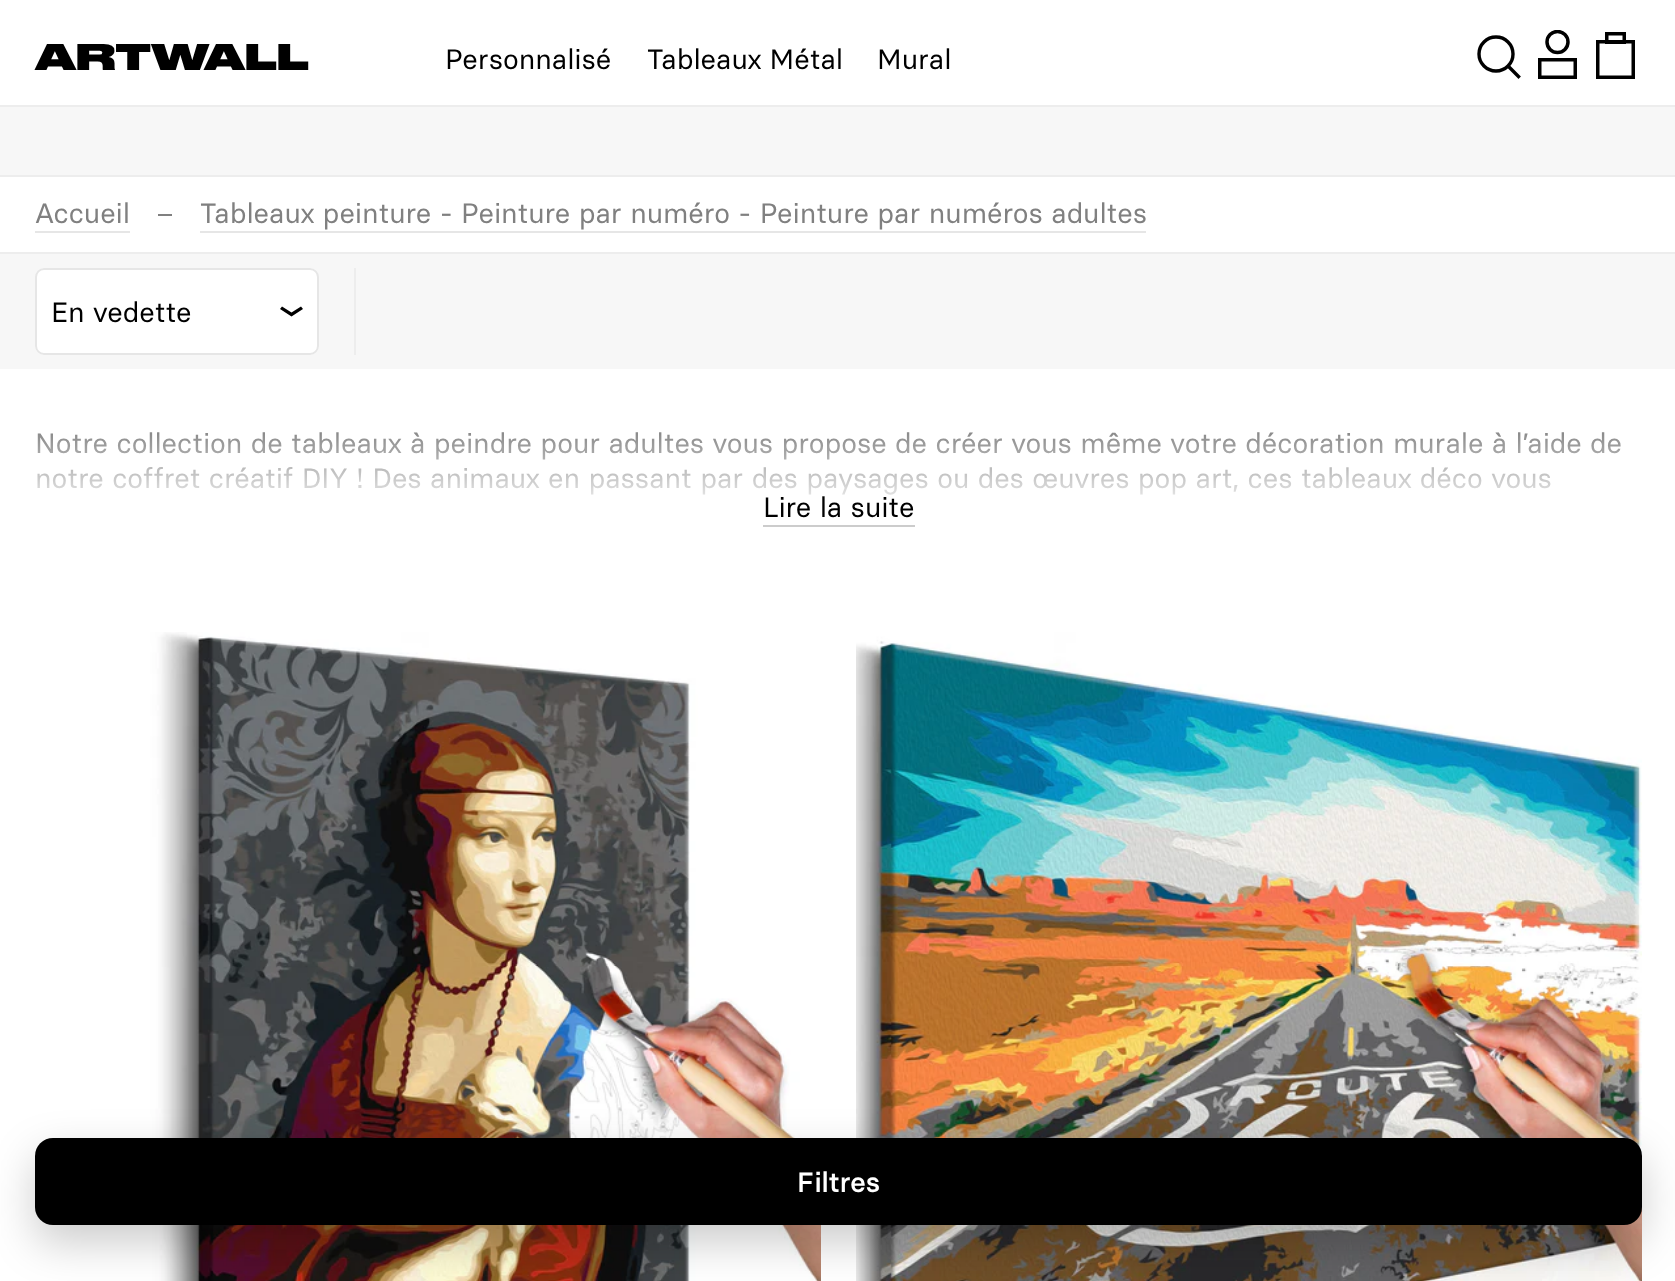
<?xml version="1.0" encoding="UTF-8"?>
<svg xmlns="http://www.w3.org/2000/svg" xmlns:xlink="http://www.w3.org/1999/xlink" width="1675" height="1281">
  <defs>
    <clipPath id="clip1"><rect x="1538" y="30" width="39" height="49" /></clipPath>
    <linearGradient id="g1" gradientUnits="userSpaceOnUse" x1="838" y1="425" x2="838" y2="527"><stop offset="0" stop-color="#ffffff" stop-opacity="0" /><stop offset="0.9" stop-color="#ffffff" /></linearGradient>
  </defs>
  <rect width="100%" height="100%" fill="#ffffff" />
  <rect y="175" width="1675" height="2" fill="#ededed" />
  <circle cx="1496" cy="54" r="17" fill="none" stroke="#000000" stroke-width="3.4" />
  <path d="M 1518.5 76.5 l -9 -9" fill="none" stroke="#000000" stroke-width="3.4" stroke-linecap="square" />
  <rect x="1539.75" y="59.75" width="35.5" height="17.5" fill="none" stroke="#000000" stroke-width="3.5" />
  <g clip-path="url(#clip1)">
    <circle cx="1557.5" cy="42" r="10.5" fill="none" stroke="#000000" stroke-width="3.5" />
  </g>
  <rect x="1597.75" y="41.75" width="35.5" height="35.5" fill="none" stroke="#000000" stroke-width="3.5" />
  <rect x="1606.75" y="33.75" width="17.5" height="8.5" fill="none" stroke="#000000" stroke-width="3.5" />
  <rect y="107" width="1675" height="68" fill="#f7f7f7" />
  <rect y="105" width="1675" height="2" fill="#ededed" />
  <rect y="252" width="1675" height="2" fill="#ededed" />
  <rect x="35" y="231" width="95" height="2" fill="#e6e6e6" />
  <rect x="158" y="214" width="14" height="2" fill="#808080" />
  <rect x="200" y="231" width="946" height="2" fill="#e6e6e6" />
  <rect y="254" width="1675" height="115" fill="#f7f7f7" />
  <rect x="354" y="268" width="2" height="87" fill="#ededed" />
  <rect x="35" y="268" width="284" height="87" rx="9" fill="#ffffff" />
  <path d="M 301 306.5 l -9.5 6 l -9.5 -6 l -2 2.5 l 11.5 7.5 l 11.5 -7.5 z" fill="#000000" />
  <rect x="36" y="269" width="282" height="85" rx="8" fill="none" stroke="#e6e6e6" stroke-width="2" />
  <rect x="763" y="525" width="152" height="2" fill="#cccccc" />
  <image x="35" y="632" width="786" height="649" xlink:href="image1.png" />
  <image x="856" y="632" width="786" height="649" xlink:href="image2.png" />
  <rect x="35" y="1155" width="1607" height="88" rx="18" fill="#000000" fill-opacity="0.2" filter="blur(22px)" />
  <rect x="35" y="1138" width="1607" height="87" rx="18" fill="#000000" />
  <text x="35" y="70" style="font-family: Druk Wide; font-size: 35px; font-weight: 900; fill: #000000">ARTWALL</text>
  <text x="445" y="69" style="font-family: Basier; font-size: 28px; fill: #000000">Personnalisé</text>
  <text x="647" y="69" style="font-family: Basier; font-size: 28px; fill: #000000">Tableaux Métal</text>
  <text x="877" y="69" style="font-family: Basier; font-size: 28px; fill: #000000">Mural</text>
  <text x="35" y="223" style="font-family: Basier; font-size: 28px; fill: #808080">Accueil</text>
  <text x="200" y="223" style="font-family: Basier; font-size: 28px; fill: #808080">Tableaux peinture - Peinture par numéro - Peinture par numéros adultes</text>
  <text x="51" y="322" style="font-family: Basier; font-size: 28px; fill: #000000">En vedette</text>
  <text x="35" y="453" style="font-family: Basier; font-size: 28px; fill: #808080">Notre collection de tableaux à peindre pour adultes vous propose de créer vous même votre décoration murale à l’aide de</text>
  <text x="35" y="488" style="font-family: Basier; font-size: 28px; fill: #808080">notre coffret créatif DIY ! Des animaux en passant par des paysages ou des œuvres pop art, ces tableaux déco vous</text>
  <rect x="37" y="432" width="1584" height="63" fill="url(#g1)" />
  <text x="763" y="517" style="font-family: Basier; font-size: 28px; fill: #000000">Lire la suite</text>
  <text x="797" y="1192" style="font-family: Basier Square; font-size: 28px; font-weight: 500; fill: #ffffff">Filtres</text>
</svg>
